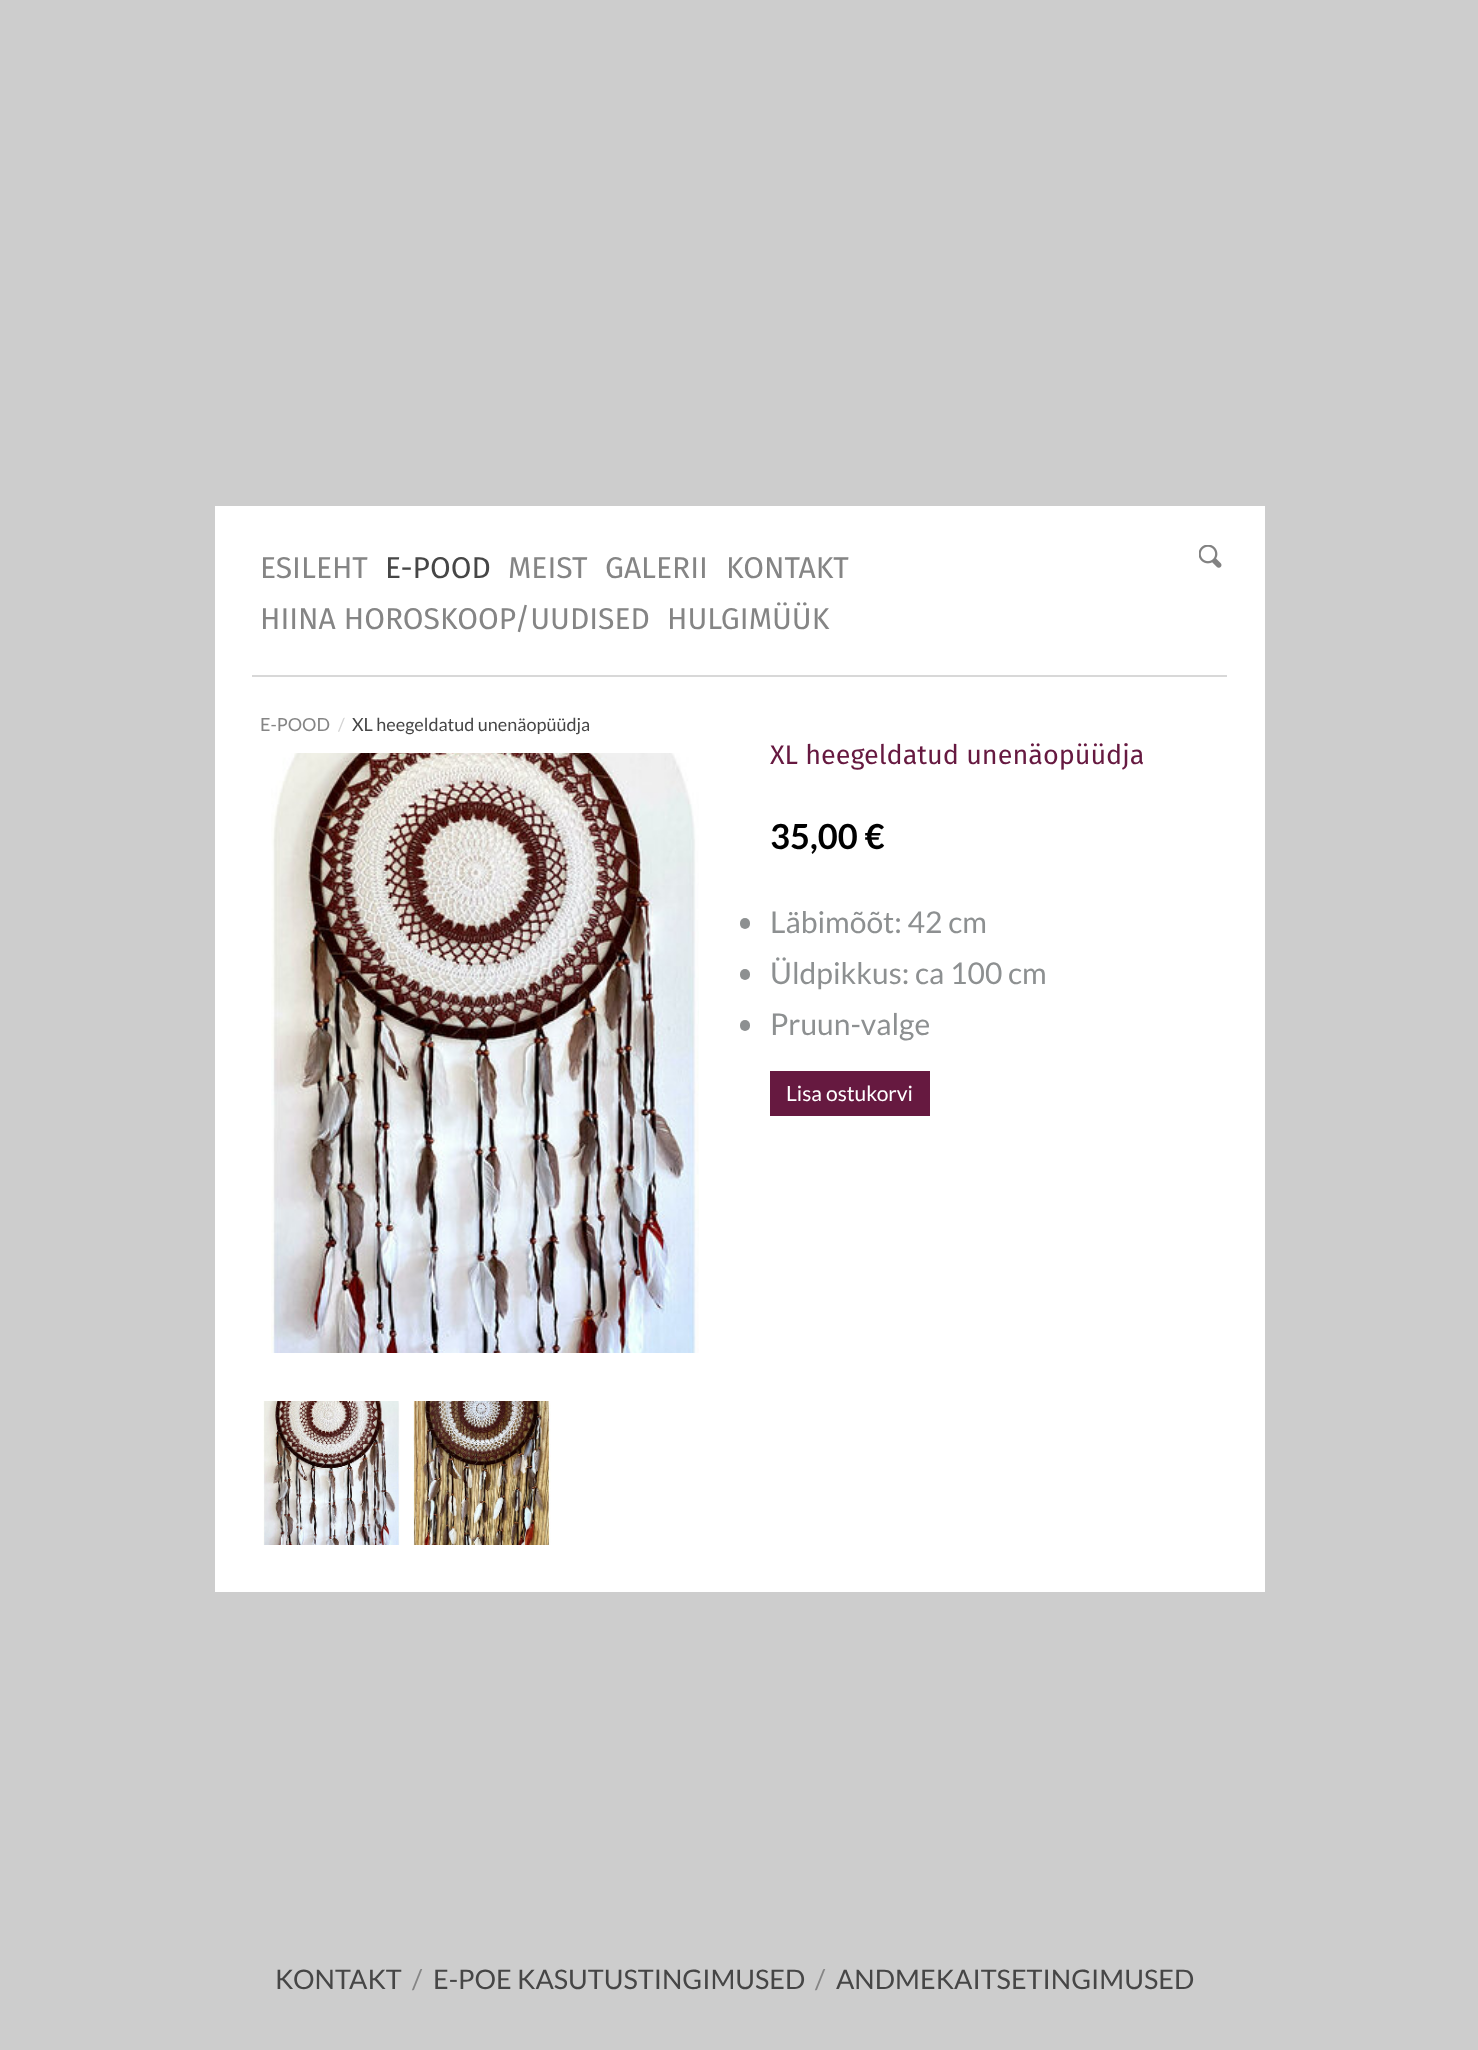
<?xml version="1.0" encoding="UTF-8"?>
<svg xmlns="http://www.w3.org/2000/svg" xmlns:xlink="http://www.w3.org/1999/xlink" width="1478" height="2050">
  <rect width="100%" height="100%" fill="#cdcdcd" />
  <rect x="215" y="506" width="1050" height="1086" fill="#ffffff" />
  <rect x="252" y="675" width="975" height="2" fill="#d8d8d8" />
  <image x="1199" y="545" width="23" height="23" xlink:href="image1.png" />
  <image x="271" y="753" width="428" height="600" xlink:href="image2.png" />
  <image x="263" y="1401" width="137" height="144" xlink:href="image3.png" />
  <image x="413" y="1401" width="138" height="144" xlink:href="image4.png" />
  <rect x="740" y="918" width="10" height="11" rx="5" fill="#8d9091" />
  <rect x="740" y="969" width="10" height="11" rx="5" fill="#8d9091" />
  <rect x="740" y="1020" width="10" height="11" rx="5" fill="#8d9091" />
  <rect x="770" y="1071" width="160" height="45" fill="#661940" />
  <text x="260" y="578" style="font-family: Fira Sans; font-size: 30px; fill: #858585">ESILEHT</text>
  <text x="385" y="578" style="font-family: Fira Sans; font-size: 30px; fill: #464646">E-POOD</text>
  <text x="508" y="578" style="font-family: Fira Sans; font-size: 30px; fill: #858585">MEIST</text>
  <text x="605" y="578" style="font-family: Fira Sans; font-size: 30px; fill: #858585">GALERII</text>
  <text x="726" y="578" style="font-family: Fira Sans; font-size: 30px; fill: #858585">KONTAKT</text>
  <text x="260" y="629" style="font-family: Fira Sans; font-size: 30px; fill: #858585">HIINA HOROSKOOP/UUDISED</text>
  <text x="667" y="629" style="font-family: Fira Sans; font-size: 30px; fill: #858585">HULGIMÜÜK</text>
  <text x="260" y="731" style="font-family: Lato; font-size: 18px; fill: #858585">E-POOD</text>
  <text x="338" y="731" style="font-family: Lato; font-size: 18px; fill: #d4d4d4">/</text>
  <text x="352" y="731" style="font-family: Lato; font-size: 18px; fill: #464646">XL heegeldatud unenäopüüdja</text>
  <text x="770" y="764" style="font-family: Fira Sans; font-size: 27px; fill: #661940">XL heegeldatud unenäopüüdja</text>
  <text x="770" y="849" style="font-family: Lato; font-size: 34.5px; font-weight: bold; fill: #000000">35,00 €</text>
  <text x="770" y="933" style="font-family: Lato; font-size: 30px; fill: #8d9091">Läbimõõt: 42 cm</text>
  <text x="770" y="984" style="font-family: Lato; font-size: 30px; fill: #8d9091">Üldpikkus: ca 100 cm</text>
  <text x="770" y="1035" style="font-family: Lato; font-size: 30px; fill: #8d9091">Pruun-valge</text>
  <text x="786" y="1101" style="font-family: Lato; font-size: 21px; fill: #ffffff">Lisa ostukorvi</text>
  <text x="275" y="1989" style="font-family: Lato; font-size: 27px; fill: #464646">KONTAKT</text>
  <text x="412" y="1989" style="font-family: Lato; font-size: 27px; fill: #858585">/</text>
  <text x="433" y="1989" style="font-family: Lato; font-size: 27px; fill: #464646">E-POE KASUTUSTINGIMUSED</text>
  <text x="815" y="1989" style="font-family: Lato; font-size: 27px; fill: #858585">/</text>
  <text x="836" y="1989" style="font-family: Lato; font-size: 27px; fill: #464646">ANDMEKAITSETINGIMUSED</text>
</svg>
